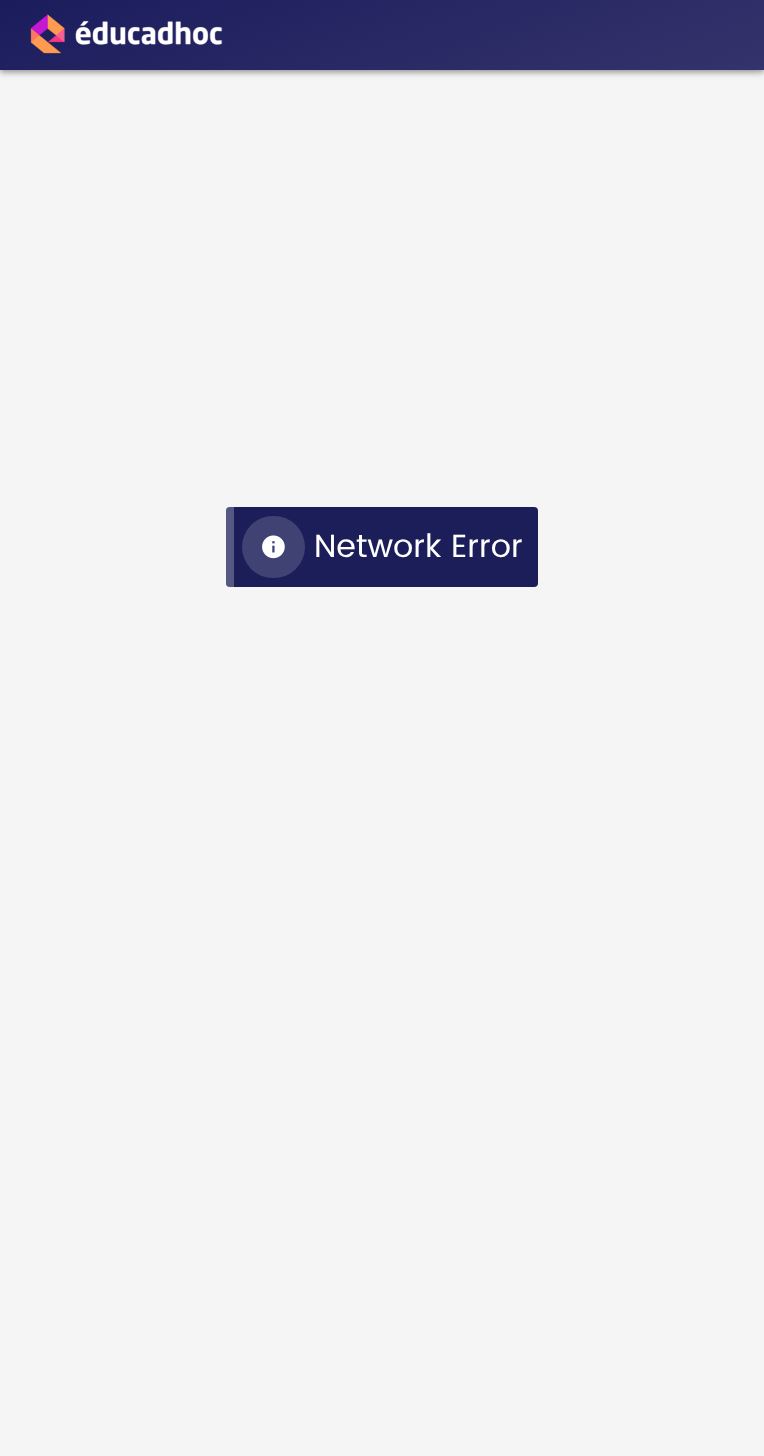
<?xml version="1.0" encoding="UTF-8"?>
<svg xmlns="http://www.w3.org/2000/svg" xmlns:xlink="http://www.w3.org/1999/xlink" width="764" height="1456">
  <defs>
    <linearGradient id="g1" gradientUnits="userSpaceOnUse" x1="438" y1="189" x2="326" y2="-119"><stop offset="0" stop-color="#34336b" /><stop offset="1" stop-color="#1b1c5d" /></linearGradient>
  </defs>
  <rect width="100%" height="100%" fill="#f5f5f5" />
  <rect y="1" width="764" height="70" fill="#000000" fill-opacity="0.12" filter="blur(5px)" />
  <rect y="4" width="764" height="70" fill="#000000" fill-opacity="0.14" filter="blur(2.5px)" />
  <rect x="1" y="3" width="762" height="68" fill="#000000" fill-opacity="0.2" filter="blur(2px)" />
  <rect width="764" height="70" fill="url(#g1)" />
  <image x="30" y="14" width="193" height="40" xlink:href="image1.png" />
  <rect x="226" y="507" width="312" height="80" rx="4" fill="#1c1e5a" />
  <path d="M 230 507 h 4 v 80 h -4 c -2 0 -4 -2 -4 -4 v -72 c 0 -2 2 -4 4 -4 z" fill="#ffffff" fill-opacity="0.26" />
  <image x="262" y="535" width="23" height="24" xlink:href="image2.png" />
  <rect x="242" y="516" width="63" height="62" rx="31" fill="#ffffff" fill-opacity="0.16" />
  <text x="314" y="557" style="font-family: Poppins; font-size: 32px; fill: #ffffff">Network Error</text>
</svg>
